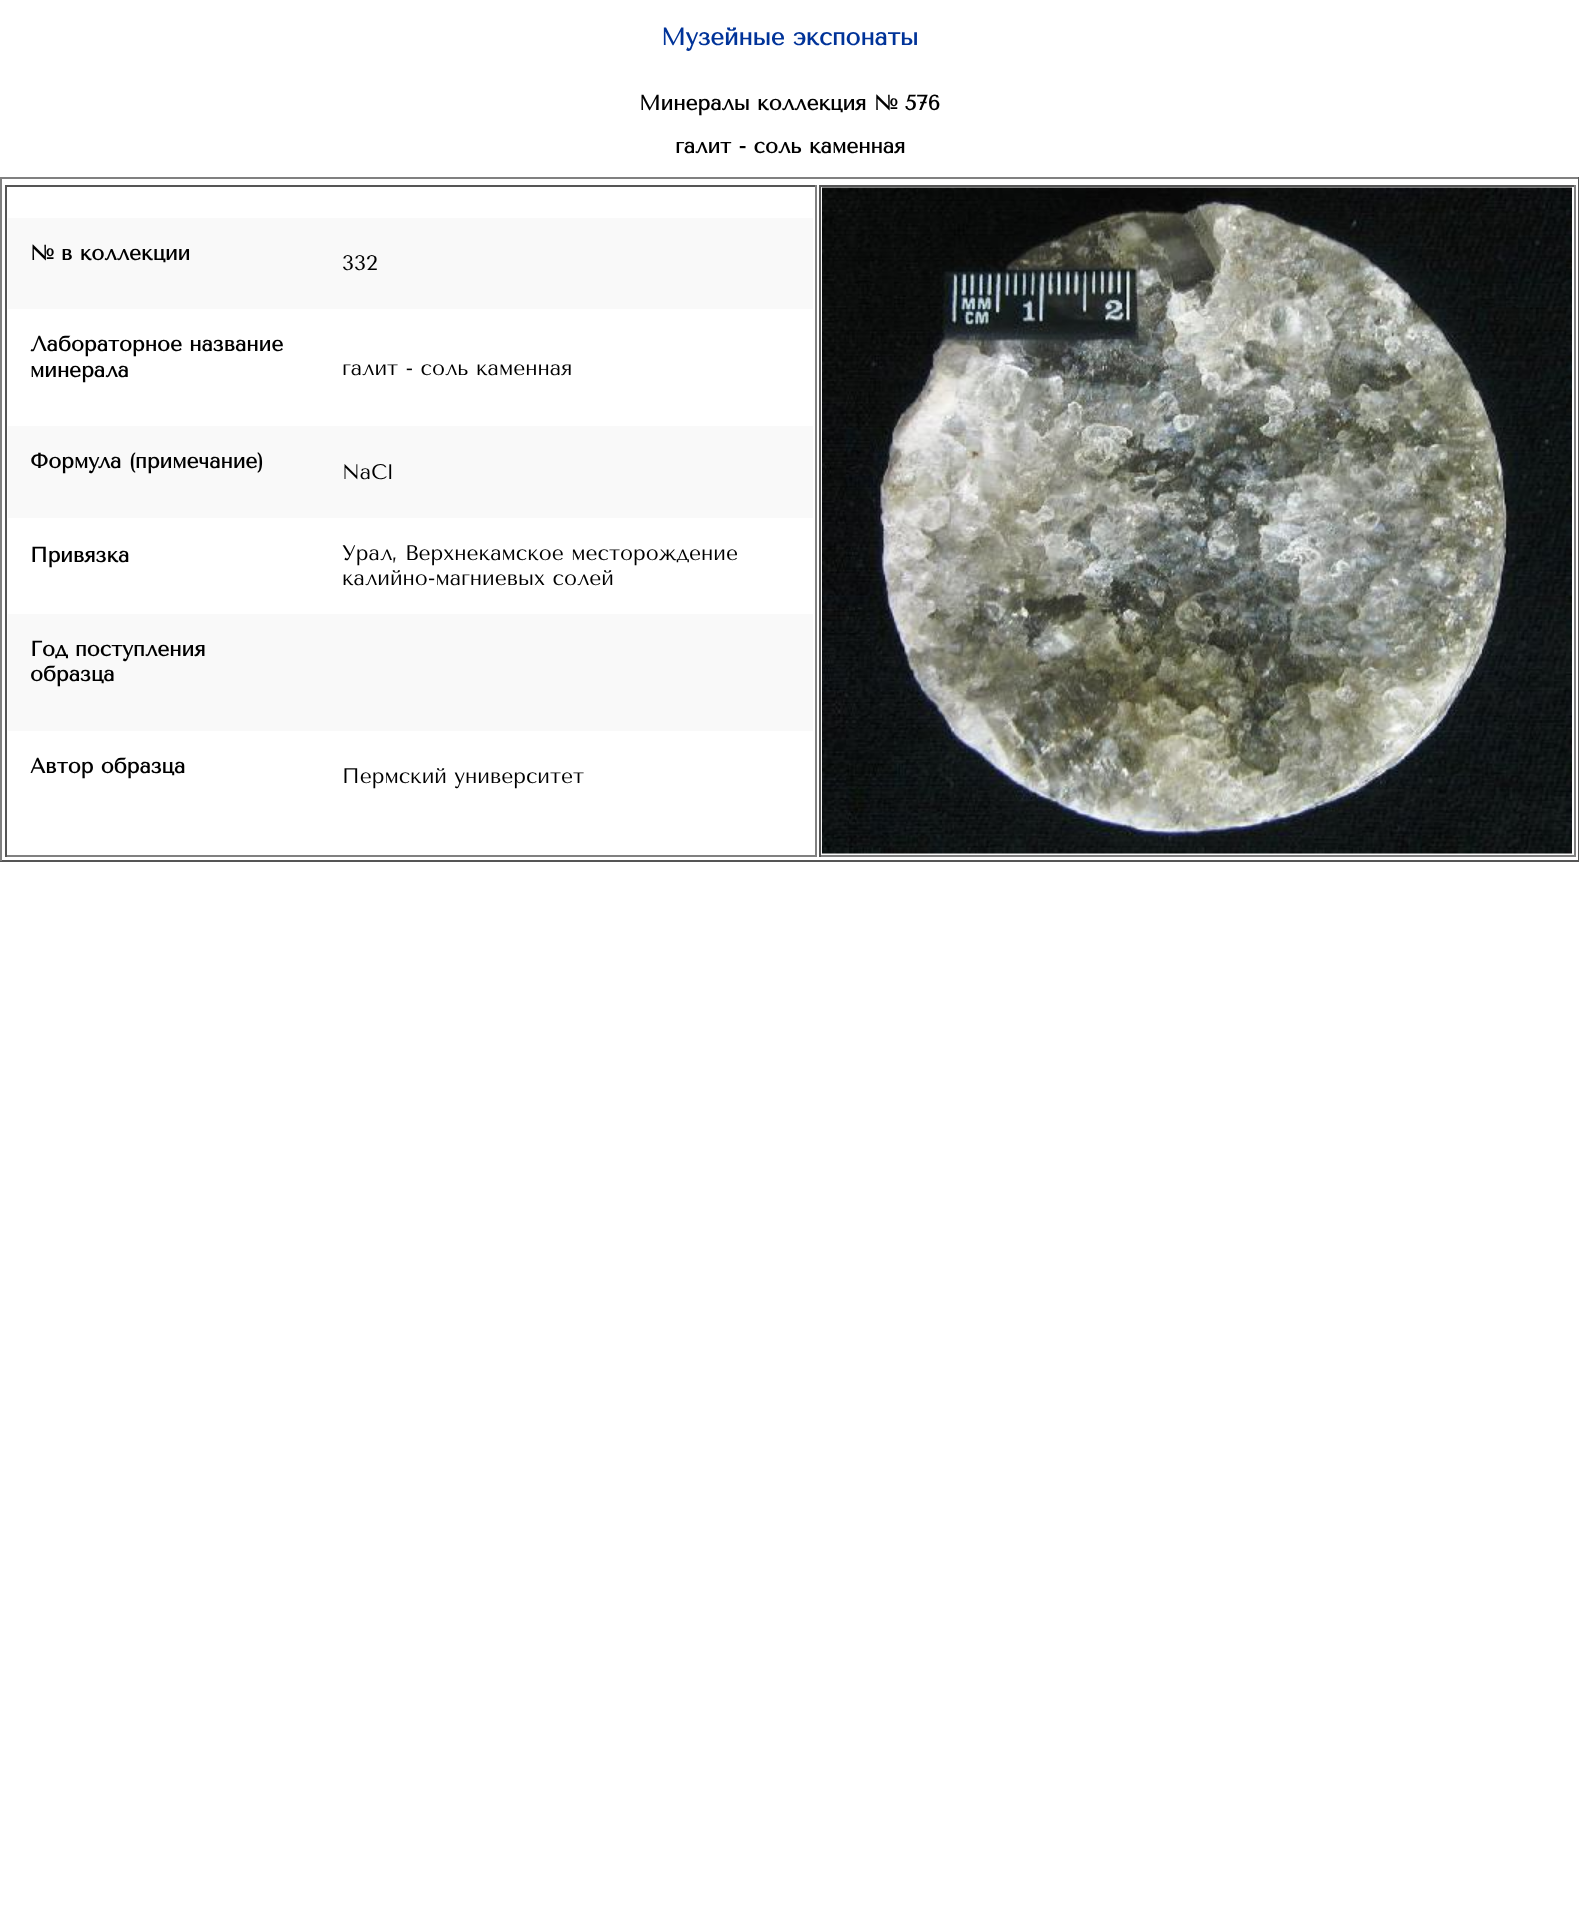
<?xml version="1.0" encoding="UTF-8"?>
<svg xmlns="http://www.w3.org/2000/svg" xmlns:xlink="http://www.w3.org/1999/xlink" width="1579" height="1919">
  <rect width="100%" height="100%" fill="#ffffff" />
  <rect y="177" width="1579" height="2" fill="#808080" />
  <rect x="1578" y="177" width="1" height="684" fill="#555555" />
  <rect y="860" width="1579" height="2" fill="#555555" />
  <rect y="177" width="2" height="684" fill="#808080" />
  <rect x="5" y="185" width="811" height="2" fill="#555555" />
  <rect x="815" y="185" width="2" height="672" fill="#808080" />
  <rect x="5" y="855" width="811" height="2" fill="#808080" />
  <rect x="5" y="185" width="2" height="672" fill="#555555" />
  <rect x="8" y="218" width="805" height="91" fill="#f9f9f9" />
  <rect x="8" y="426" width="805" height="92" fill="#f9f9f9" />
  <rect x="8" y="614" width="805" height="117" fill="#f9f9f9" />
  <rect x="821" y="187" width="753" height="668" fill="#f9f9f9" />
  <rect x="819" y="185" width="756" height="2" fill="#555555" />
  <rect x="1574" y="185" width="2" height="672" fill="#808080" />
  <rect x="819" y="855" width="756" height="2" fill="#808080" />
  <rect x="819" y="185" width="2" height="672" fill="#555555" />
  <image x="822" y="187" width="750" height="667" xlink:href="image1.png" />
  <text x="661" y="45" style="font-family: Tenor Sans; font-size: 24px; font-weight: bold; fill: #003399">Музейные экспонаты</text>
  <text x="639" y="110" style="font-family: Tenor Sans; font-size: 21px; font-weight: bold; fill: #000000">Минералы коллекция № 576</text>
  <text x="675" y="153" style="font-family: Tenor Sans; font-size: 21px; font-weight: bold; fill: #000000">галит - соль каменная</text>
  <text x="30" y="260" style="font-family: Tenor Sans; font-size: 21px; font-weight: bold; fill: #000000">№ в коллекции</text>
  <text x="342" y="270" style="font-family: Tenor Sans; font-size: 21px; fill: #000000">332</text>
  <text x="30" y="351" style="font-family: Tenor Sans; font-size: 21px; font-weight: bold; fill: #000000">Лабораторное название</text>
  <text x="30" y="377" style="font-family: Tenor Sans; font-size: 21px; font-weight: bold; fill: #000000">минерала</text>
  <text x="342" y="375" style="font-family: Tenor Sans; font-size: 21px; fill: #000000">галит - соль каменная</text>
  <text x="30" y="468" style="font-family: Tenor Sans; font-size: 21px; font-weight: bold; fill: #000000">Формула (примечание)</text>
  <text x="342" y="479" style="font-family: Tenor Sans; font-size: 21px; fill: #000000">NaCl</text>
  <text x="30" y="562" style="font-family: Tenor Sans; font-size: 21px; font-weight: bold; fill: #000000">Привязка</text>
  <text x="342" y="560" style="font-family: Tenor Sans; font-size: 21px; fill: #000000">Урал, Верхнекамское месторождение</text>
  <text x="342" y="585" style="font-family: Tenor Sans; font-size: 21px; fill: #000000">калийно-магниевых солей</text>
  <text x="30" y="656" style="font-family: Tenor Sans; font-size: 21px; font-weight: bold; fill: #000000">Год поступления</text>
  <text x="30" y="681" style="font-family: Tenor Sans; font-size: 21px; font-weight: bold; fill: #000000">образца</text>
  <text x="30" y="773" style="font-family: Tenor Sans; font-size: 21px; font-weight: bold; fill: #000000">Автор образца</text>
  <text x="342" y="783" style="font-family: Tenor Sans; font-size: 21px; fill: #000000">Пермский университет</text>
</svg>
